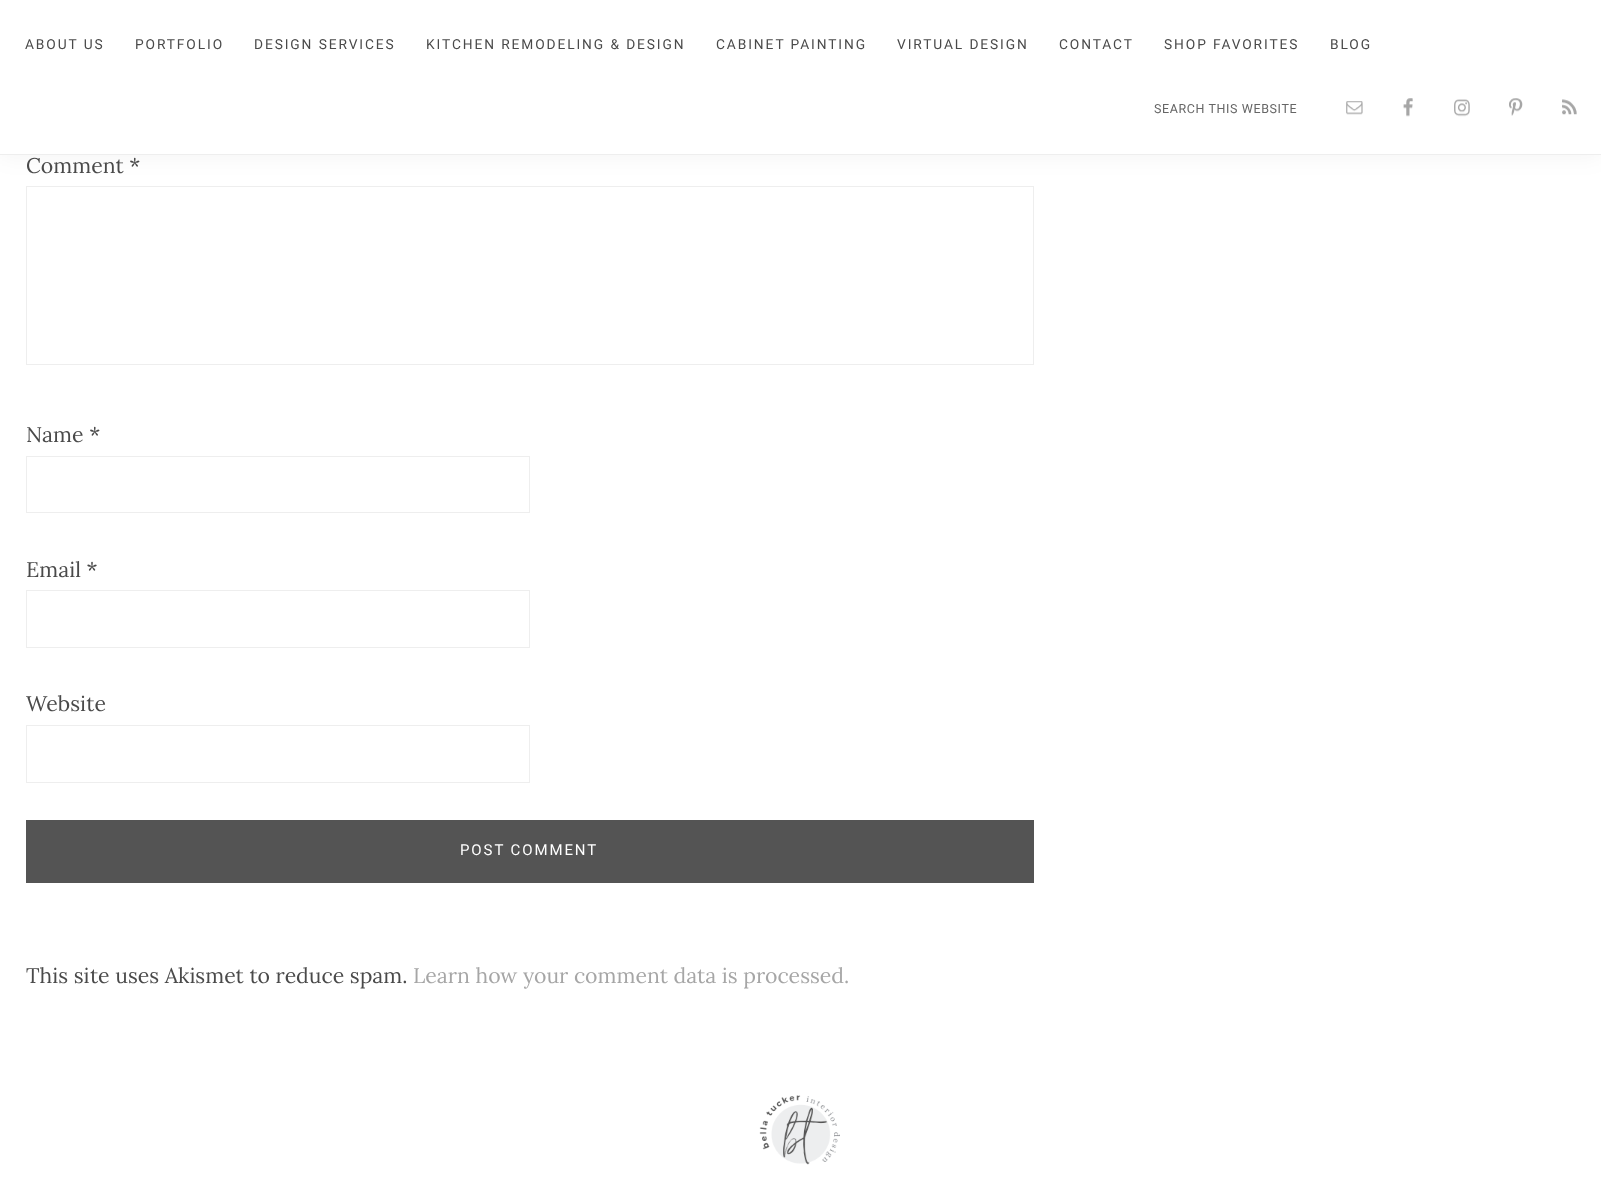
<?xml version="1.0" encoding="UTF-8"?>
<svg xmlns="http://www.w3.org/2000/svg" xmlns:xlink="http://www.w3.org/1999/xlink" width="1601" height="1189">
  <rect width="100%" height="100%" fill="#ffffff" />
  <rect x="26.5" y="186.5" width="1007" height="178" fill="none" stroke="#eeeeee" />
  <rect width="1601" height="155" fill="#000000" fill-opacity="0.05" filter="blur(12.5px)" />
  <rect width="1601" height="154" fill="#ffffff" />
  <rect y="154" width="1601" height="1" fill="#eeeeee" />
  <image x="1346" y="101" width="17" height="14" xlink:href="image1.png" />
  <image x="1403" y="98" width="10" height="19" xlink:href="image2.png" />
  <image x="1454" y="99" width="16" height="18" xlink:href="image3.png" />
  <image x="1509" y="98" width="14" height="18" xlink:href="image4.png" />
  <image x="1562" y="99" width="15" height="16" xlink:href="image5.png" />
  <rect x="26.5" y="456.5" width="503" height="56" fill="none" stroke="#eeeeee" />
  <rect x="26.5" y="590.5" width="503" height="57" fill="none" stroke="#eeeeee" />
  <rect x="26.5" y="725.5" width="503" height="57" fill="none" stroke="#eeeeee" />
  <rect x="26" y="820" width="1008" height="63" fill="#545454" />
  <image x="759" y="1095" width="81" height="70" xlink:href="image6.png" />
  <text x="25" y="49" style="font-family: Roboto; font-size: 13.75px; letter-spacing: 1.9px; fill: #4a4a4a">ABOUT US</text>
  <text x="135" y="49" style="font-family: Roboto; font-size: 13.75px; letter-spacing: 1.9px; fill: #4a4a4a">PORTFOLIO</text>
  <text x="254" y="49" style="font-family: Roboto; font-size: 13.75px; letter-spacing: 1.9px; fill: #4a4a4a">DESIGN SERVICES</text>
  <text x="426" y="49" style="font-family: Roboto; font-size: 13.75px; letter-spacing: 1.9px; fill: #4a4a4a">KITCHEN REMODELING &amp; DESIGN</text>
  <text x="716" y="49" style="font-family: Roboto; font-size: 13.75px; letter-spacing: 1.9px; fill: #4a4a4a">CABINET PAINTING</text>
  <text x="897" y="49" style="font-family: Roboto; font-size: 13.75px; letter-spacing: 1.9px; fill: #4a4a4a">VIRTUAL DESIGN</text>
  <text x="1059" y="49" style="font-family: Roboto; font-size: 13.75px; letter-spacing: 1.9px; fill: #4a4a4a">CONTACT</text>
  <text x="1164" y="49" style="font-family: Roboto; font-size: 13.75px; letter-spacing: 1.9px; fill: #4a4a4a">SHOP FAVORITES</text>
  <text x="1330" y="49" style="font-family: Roboto; font-size: 13.75px; letter-spacing: 1.9px; fill: #4a4a4a">BLOG</text>
  <text x="1154" y="113" style="font-family: Roboto; font-size: 12.5px; letter-spacing: 0.6px; fill: #666666">SEARCH THIS WEBSITE</text>
  <text x="26" y="173" style="font-family: Lora; font-size: 21.25px; fill: #4a4a4a">Comment *</text>
  <text x="26" y="442" style="font-family: Lora; font-size: 21.25px; fill: #4a4a4a">Name *</text>
  <text x="26" y="577" style="font-family: Lora; font-size: 21.25px; fill: #4a4a4a">Email *</text>
  <text x="26" y="711" style="font-family: Lora; font-size: 21.25px; fill: #4a4a4a">Website</text>
  <text x="460" y="855" style="font-family: Roboto; font-size: 15px; letter-spacing: 1.9px; fill: #ffffff">POST COMMENT</text>
  <text x="26" y="983" style="font-family: Lora; font-size: 21.25px; fill: #4a4a4a">This site uses Akismet to reduce spam.</text>
  <text x="413" y="983" style="font-family: Lora; font-size: 21.25px; fill: #a6a6a6">Learn how your comment data is processed.</text>
</svg>
